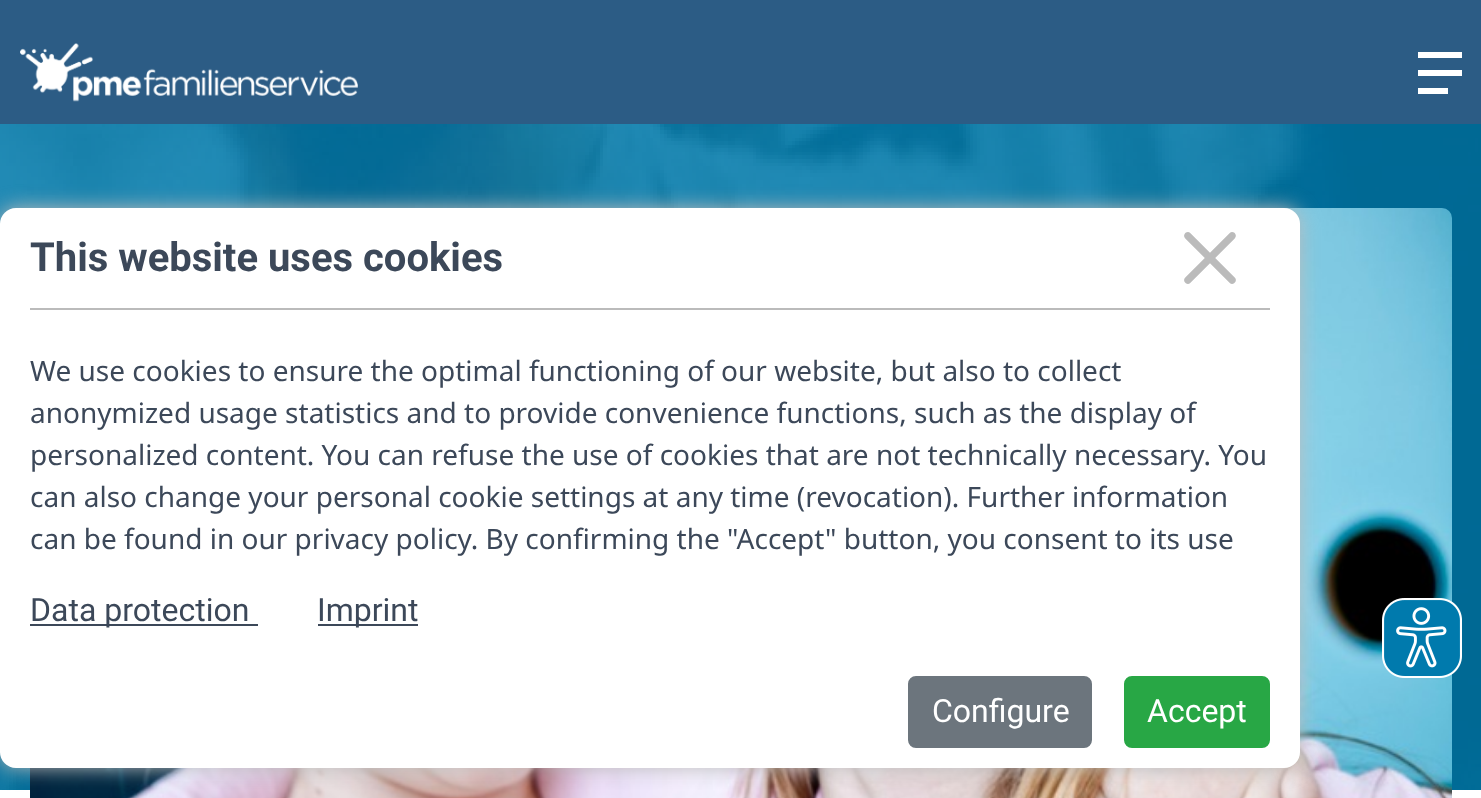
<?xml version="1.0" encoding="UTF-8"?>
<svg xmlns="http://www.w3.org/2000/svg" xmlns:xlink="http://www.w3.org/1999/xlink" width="1481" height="798">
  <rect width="100%" height="100%" fill="#ffffff" />
  <rect width="1481" height="124" fill="#2c5c85" />
  <image x="20" y="43" width="338" height="59" xlink:href="image1.png" />
  <rect x="1418" y="52" width="44" height="6" fill="#ffffff" />
  <rect x="1418" y="70" width="44" height="6" fill="#ffffff" />
  <rect x="1418" y="88" width="30" height="6" fill="#ffffff" />
  <image x="0" y="124" width="1481" height="666" xlink:href="image2.png" />
  <image x="30" y="208" width="1422" height="590" xlink:href="image3.png" />
  <rect y="208" width="1300" height="560" rx="16" fill="#bbbbbb" filter="blur(10px)" />
  <rect y="208" width="1300" height="560" rx="16" fill="#ffffff" />
  <image x="1184" y="232" width="52" height="52" xlink:href="image4.png" />
  <rect x="30" y="308" width="1240" height="2" fill="#bbbbbb" />
  <rect x="30" y="624" width="228" height="2" fill="#3c4859" />
  <rect x="318" y="624" width="100" height="2" fill="#3c4859" />
  <rect x="909" y="677" width="182" height="70" rx="7" fill="#6c757d" stroke="#6c757d" stroke-width="2" />
  <rect x="1125" y="677" width="144" height="70" rx="7" fill="#28a745" stroke="#28a745" stroke-width="2" />
  <image x="1382" y="598" width="80" height="80" xlink:href="image5.png" />
  <text x="30" y="271" style="font-family: Roboto; font-size: 40px; font-weight: bold; fill: #3c4859">This website uses cookies</text>
  <text x="30" y="381" style="font-family: Noto Sans; font-size: 28px; fill: #3c4859">We use cookies to ensure the optimal functioning of our website, but also to collect</text>
  <text x="30" y="423" style="font-family: Noto Sans; font-size: 28px; fill: #3c4859">anonymized usage statistics and to provide convenience functions, such as the display of</text>
  <text x="30" y="465" style="font-family: Noto Sans; font-size: 28px; fill: #3c4859">personalized content. You can refuse the use of cookies that are not technically necessary. You</text>
  <text x="30" y="507" style="font-family: Noto Sans; font-size: 28px; fill: #3c4859">can also change your personal cookie settings at any time (revocation). Further information</text>
  <text x="30" y="549" style="font-family: Noto Sans; font-size: 28px; fill: #3c4859">can be found in our privacy policy. By confirming the "Accept" button, you consent to its use</text>
  <text x="30" y="621" style="font-family: Roboto; font-size: 32px; fill: #3c4859">Data protection</text>
  <text x="317" y="621" style="font-family: Roboto; font-size: 32px; fill: #3c4859">Imprint</text>
  <text x="932" y="722" style="font-family: Roboto; font-size: 32px; fill: #ffffff">Configure</text>
  <text x="1147" y="722" style="font-family: Roboto; font-size: 32px; fill: #ffffff">Accept</text>
</svg>
